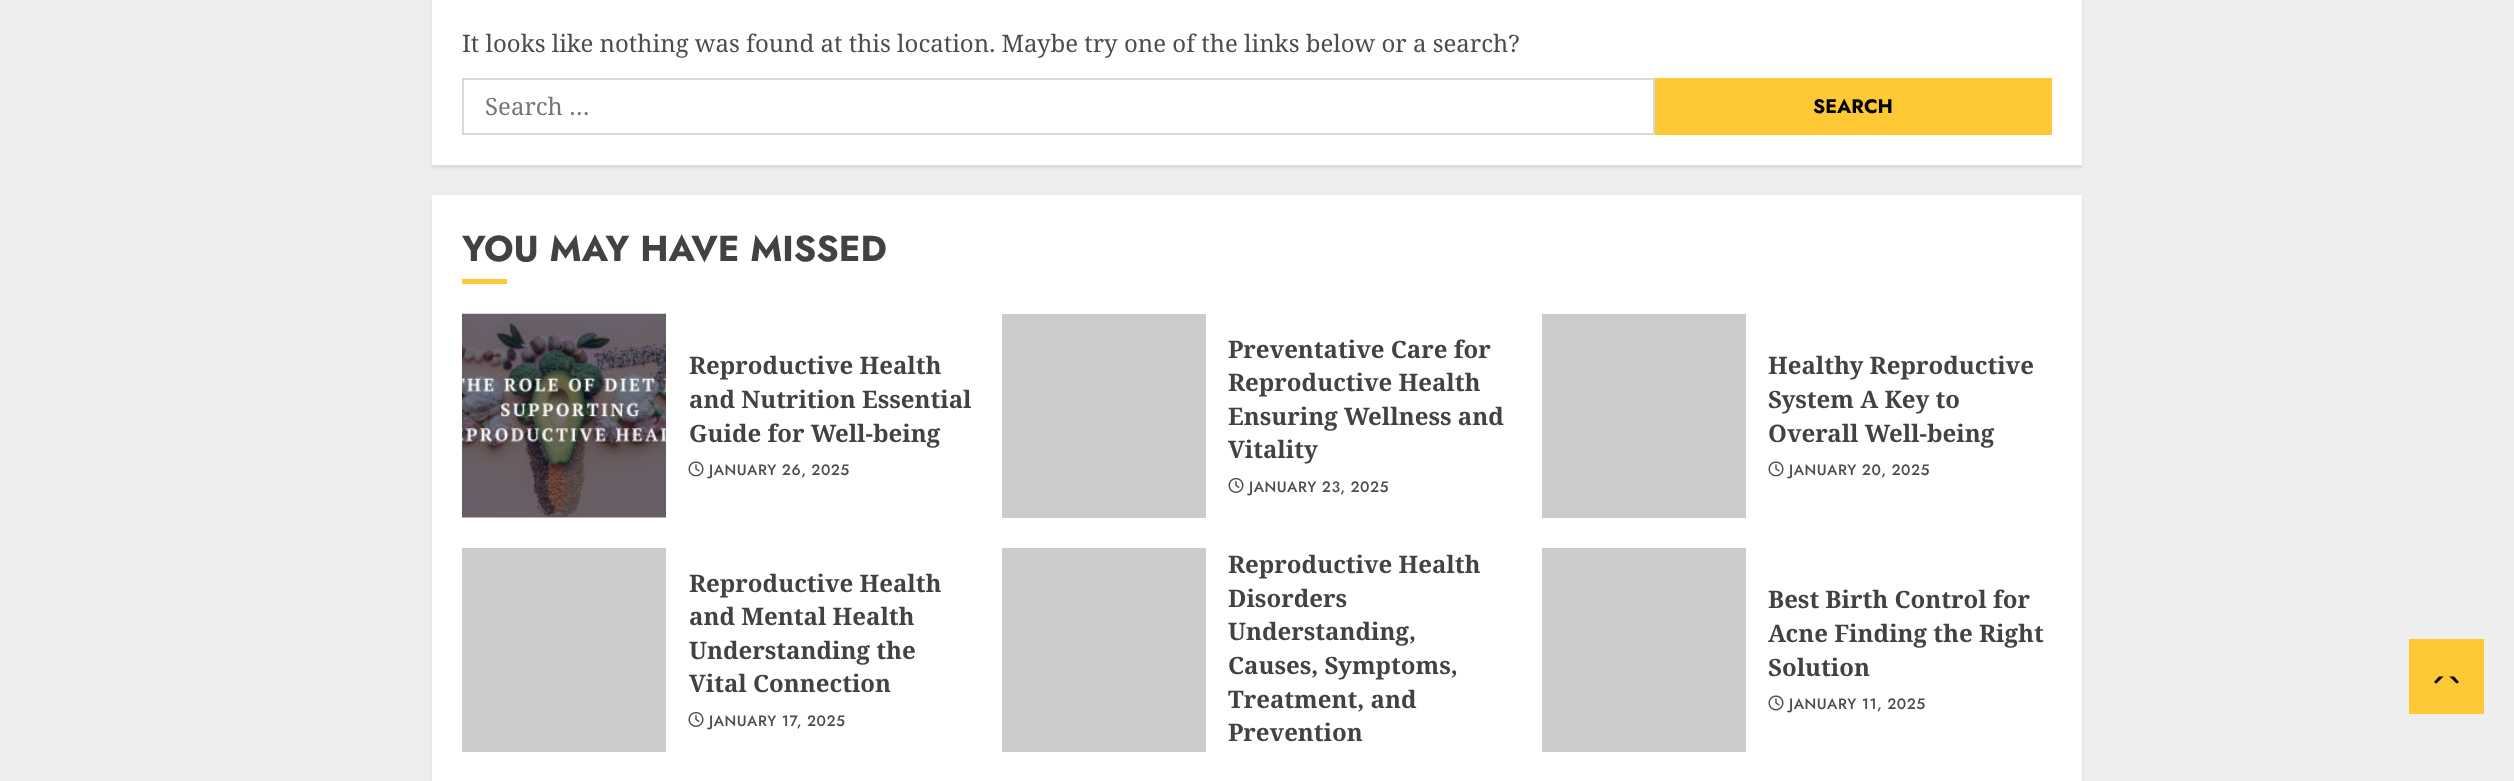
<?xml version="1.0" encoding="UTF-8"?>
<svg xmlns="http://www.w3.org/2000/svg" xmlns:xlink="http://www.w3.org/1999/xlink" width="2514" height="781">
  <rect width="100%" height="100%" fill="#eeeeee" />
  <rect x="432" y="-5" width="1650" height="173" fill="#020202" fill-opacity="0.08" filter="blur(1.5px)" />
  <rect x="432" width="1650" height="165" fill="#ffffff" />
  <rect x="463" y="79" width="1191" height="55" fill="none" stroke="#d9d9d9" stroke-width="2" />
  <rect x="1655" y="78" width="397" height="57" fill="#ffc936" />
  <rect x="432" y="198" width="1650" height="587" fill="#020202" fill-opacity="0.08" filter="blur(1.5px)" />
  <rect x="432" y="195" width="1650" height="586" fill="#ffffff" />
  <rect x="462" y="279" width="45" height="5" fill="#ffc936" />
  <rect x="462" y="517" width="204" height="1" fill="#cccccc" />
  <image x="462" y="313" width="204" height="205" xlink:href="image1.png" />
  <image x="688" y="461" width="16" height="16" xlink:href="image2.png" />
  <rect x="1002" y="314" width="204" height="204" fill="#cccccc" />
  <image x="1228" y="478" width="16" height="15" xlink:href="image3.png" />
  <rect x="1542" y="314" width="204" height="204" fill="#cccccc" />
  <image x="1768" y="461" width="16" height="16" xlink:href="image2.png" />
  <rect x="462" y="548" width="204" height="204" fill="#cccccc" />
  <image x="688" y="712" width="16" height="15" xlink:href="image3.png" />
  <rect x="1002" y="548" width="204" height="204" fill="#cccccc" />
  <rect x="1542" y="548" width="204" height="204" fill="#cccccc" />
  <image x="1768" y="695" width="16" height="16" xlink:href="image2.png" />
  <rect x="2409" y="639" width="75" height="75" fill="#ffc936" />
  <path d="M 2439 684 h 15 c 2 0 4 -1 5 -2 l -5 -5.5 h -15 l -5 5.5 c 1 1 3 2 5 2 z" fill="#020202" />
  <path d="M 2461.5 688.5 h -30 l 15 -15 z" fill="#ffc936" />
  <text x="462" y="52" style="font-family: Noto Serif; font-size: 24px; fill: #4c4c4c">It looks like nothing was found at this location. Maybe try one of the links below or a search?</text>
  <text x="485" y="115" style="font-family: Noto Serif; font-size: 24px; fill: #767676">Search …</text>
  <text x="1813" y="113" style="font-family: Jost; font-size: 19.5px; font-weight: bold; fill: #020202">SEARCH</text>
  <text x="462" y="261" style="font-family: Jost; font-size: 36px; font-weight: bold; fill: #424242">YOU MAY HAVE MISSED</text>
  <text x="689" y="374" style="font-family: Noto Serif; font-size: 24px; font-weight: bold; fill: #424242">Reproductive Health</text>
  <text x="689" y="408" style="font-family: Noto Serif; font-size: 24px; font-weight: bold; fill: #424242">and Nutrition Essential</text>
  <text x="689" y="442" style="font-family: Noto Serif; font-size: 24px; font-weight: bold; fill: #424242">Guide for Well-being</text>
  <text x="709" y="475" style="font-family: Jost; font-size: 15px; font-weight: 500; letter-spacing: 0.5px; fill: #4c4c4c">JANUARY 26, 2025</text>
  <text x="1228" y="358" style="font-family: Noto Serif; font-size: 24px; font-weight: bold; fill: #424242">Preventative Care for</text>
  <text x="1228" y="391" style="font-family: Noto Serif; font-size: 24px; font-weight: bold; fill: #424242">Reproductive Health</text>
  <text x="1228" y="425" style="font-family: Noto Serif; font-size: 24px; font-weight: bold; fill: #424242">Ensuring Wellness and</text>
  <text x="1228" y="458" style="font-family: Noto Serif; font-size: 24px; font-weight: bold; fill: #424242">Vitality</text>
  <text x="1249" y="492" style="font-family: Jost; font-size: 15px; font-weight: 500; letter-spacing: 0.5px; fill: #4c4c4c">JANUARY 23, 2025</text>
  <text x="1768" y="374" style="font-family: Noto Serif; font-size: 24px; font-weight: bold; fill: #424242">Healthy Reproductive</text>
  <text x="1768" y="408" style="font-family: Noto Serif; font-size: 24px; font-weight: bold; fill: #424242">System A Key to</text>
  <text x="1768" y="442" style="font-family: Noto Serif; font-size: 24px; font-weight: bold; fill: #424242">Overall Well-being</text>
  <text x="1789" y="475" style="font-family: Jost; font-size: 15px; font-weight: 500; letter-spacing: 0.5px; fill: #4c4c4c">JANUARY 20, 2025</text>
  <text x="689" y="592" style="font-family: Noto Serif; font-size: 24px; font-weight: bold; fill: #424242">Reproductive Health</text>
  <text x="689" y="625" style="font-family: Noto Serif; font-size: 24px; font-weight: bold; fill: #424242">and Mental Health</text>
  <text x="689" y="659" style="font-family: Noto Serif; font-size: 24px; font-weight: bold; fill: #424242">Understanding the</text>
  <text x="689" y="692" style="font-family: Noto Serif; font-size: 24px; font-weight: bold; fill: #424242">Vital Connection</text>
  <text x="709" y="726" style="font-family: Jost; font-size: 15px; font-weight: 500; letter-spacing: 0.5px; fill: #4c4c4c">JANUARY 17, 2025</text>
  <text x="1228" y="573" style="font-family: Noto Serif; font-size: 24px; font-weight: bold; fill: #424242">Reproductive Health</text>
  <text x="1228" y="607" style="font-family: Noto Serif; font-size: 24px; font-weight: bold; fill: #424242">Disorders</text>
  <text x="1228" y="640" style="font-family: Noto Serif; font-size: 24px; font-weight: bold; fill: #424242">Understanding,</text>
  <text x="1228" y="674" style="font-family: Noto Serif; font-size: 24px; font-weight: bold; fill: #424242">Causes, Symptoms,</text>
  <text x="1228" y="708" style="font-family: Noto Serif; font-size: 24px; font-weight: bold; fill: #424242">Treatment, and</text>
  <text x="1228" y="741" style="font-family: Noto Serif; font-size: 24px; font-weight: bold; fill: #424242">Prevention</text>
  <text x="1768" y="608" style="font-family: Noto Serif; font-size: 24px; font-weight: bold; fill: #424242">Best Birth Control for</text>
  <text x="1768" y="642" style="font-family: Noto Serif; font-size: 24px; font-weight: bold; fill: #424242">Acne Finding the Right</text>
  <text x="1768" y="676" style="font-family: Noto Serif; font-size: 24px; font-weight: bold; fill: #424242">Solution</text>
  <text x="1789" y="709" style="font-family: Jost; font-size: 15px; font-weight: 500; letter-spacing: 0.5px; fill: #4c4c4c">JANUARY 11, 2025</text>
</svg>
